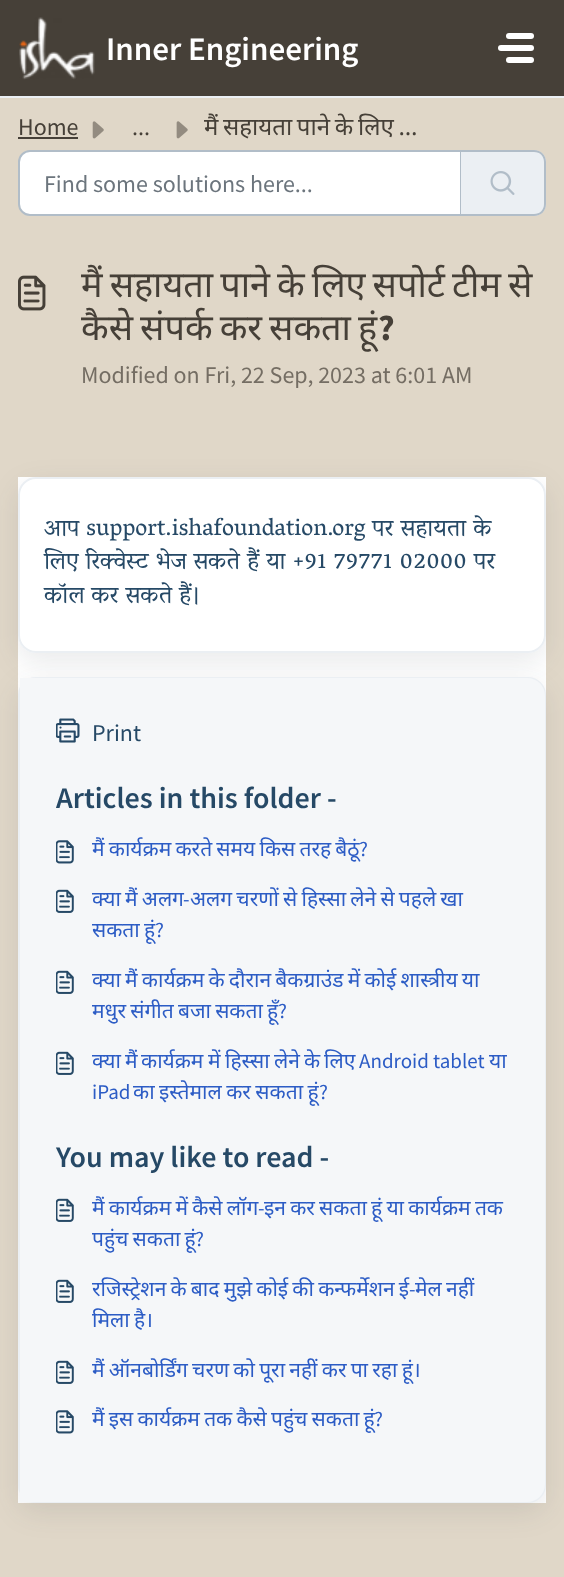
<?xml version="1.0" encoding="UTF-8"?>
<svg xmlns="http://www.w3.org/2000/svg" xmlns:xlink="http://www.w3.org/1999/xlink" width="564" height="1577">
  <defs>
    <clipPath id="clip1"><path d="M 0 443 h 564 v 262 h -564 z m 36 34 h 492 c 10 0 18 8 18 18 v 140 c 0 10 -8 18 -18 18 h -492 c -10 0 -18 -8 -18 -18 v -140 c 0 -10 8 -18 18 -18 z" clip-rule="evenodd" /></clipPath>
  </defs>
  <rect width="100%" height="100%" fill="#e0d7c8" />
  <rect width="564" height="96" fill="#464038" />
  <rect y="96" width="564" height="2" fill="#ebeff3" />
  <image x="19" y="17" width="76" height="63" xlink:href="image1.png" />
  <rect x="506" y="33" width="28" height="6" rx="3" fill="#ffffff" />
  <rect x="498" y="45" width="36" height="6" rx="3" fill="#ffffff" />
  <rect x="506" y="57" width="28" height="6" rx="3" fill="#ffffff" />
  <rect x="18" y="137" width="60" height="2" fill="#464038" />
  <image x="92" y="121" width="12" height="18" xlink:href="image2.png" />
  <image x="176" y="121" width="12" height="18" xlink:href="image3.png" />
  <path d="M 30 151 h 431 v 64 h -431 c -6 0 -11 -5 -11 -11 v -42 c 0 -6 5 -11 11 -11 z" fill="#ffffff" stroke="#b1bdc8" stroke-width="2" />
  <path d="M 461 150 h 73 c 6.5 0 12 5.5 12 12 v 42 c 0 6.5 -5.5 12 -12 12 h -73 z" fill="#ebeff3" />
  <path d="M 460 150 h 74 c 7 0 12 5 12 12 v 42 c 0 7 -5 12 -12 12 h -74 z m 0 2 h 74 c 6 0 10 4 10 10 v 42 c 0 6 -4 10 -10 10 h -74 z" fill="#b1bdc8" fill-rule="evenodd" />
  <image x="490" y="171" width="25" height="24" xlink:href="image4.png" />
  <image x="18" y="275" width="28" height="36" xlink:href="image5.png" />
  <rect x="18" y="477" width="528" height="1026" fill="#ffffff" />
  <g clip-path="url(#clip1)">
    <rect x="18" y="486" width="528" height="176" rx="18" fill="#27313a" fill-opacity="0.1" filter="blur(14px)" />
  </g>
  <rect x="19" y="478" width="526" height="174" rx="17" fill="none" stroke="#ebeff3" stroke-width="2" />
  <rect x="18" y="686" width="528" height="826" rx="18" fill="#27313a" fill-opacity="0.1" filter="blur(14px)" />
  <rect x="19" y="678" width="526" height="824" rx="17" fill="none" stroke="#ebeff3" stroke-width="2" />
  <path d="M 20 678 h 507 c 10 0 18 8 18 18 v 788 c 0 10 -8 18 -18 18 h -507 z" fill="#f5f7f9" />
  <image x="56" y="718" width="24" height="25" xlink:href="image6.png" />
  <image x="56" y="840" width="18" height="24" xlink:href="image7.png" />
  <image x="56" y="889" width="18" height="24" xlink:href="image8.png" />
  <image x="56" y="970" width="18" height="24" xlink:href="image8.png" />
  <image x="56" y="1051" width="18" height="24" xlink:href="image8.png" />
  <image x="56" y="1198" width="18" height="24" xlink:href="image8.png" />
  <image x="56" y="1279" width="18" height="24" xlink:href="image8.png" />
  <image x="56" y="1360" width="18" height="24" xlink:href="image8.png" />
  <image x="56" y="1410" width="18" height="24" xlink:href="image7.png" />
  <text x="106" y="60" style="font-family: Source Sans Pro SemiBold; font-size: 33px; font-weight: 600; fill: #ffffff">Inner Engineering</text>
  <text x="18" y="135" style="font-family: Source Sans Pro; font-size: 24px; fill: #464038">Home</text>
  <text x="132" y="135" style="font-family: Source Sans Pro; font-size: 24px; fill: #464038">...</text>
  <text x="204" y="135" word-spacing="-1.5" style="font-family: Noto Sans; font-size: 24px; fill: #464038">मैं सहायता पाने के लिए …</text>
  <text x="44" y="192" style="font-family: Source Sans Pro; font-size: 24px; fill: #6c757d">Find some solutions here...</text>
  <text x="81" y="297" word-spacing="-2.25" style="font-family: Noto Sans; font-size: 36px; fill: #464038">मैं सहायता पाने के लिए सपोर्ट टीम से</text>
  <text x="81" y="340" word-spacing="-2.25" style="font-family: Noto Sans; font-size: 36px; fill: #464038">कैसे संपर्क कर सकता हूं</text>
  <text x="378" y="340" style="font-family: Source Sans Pro; font-size: 36px; font-weight: bold; fill: #464038">?</text>
  <text x="81" y="383" style="font-family: Source Sans Pro; font-size: 24px; fill: #746d63">Modified on Fri, 22 Sep, 2023 at 6:01 AM</text>
  <text x="44" y="535" style="font-family: Vesper Libre; font-size: 24px; fill: #264966">आप support.ishafoundation.org पर सहायता के</text>
  <text x="44" y="568" style="font-family: Vesper Libre; font-size: 24px; fill: #264966">लिए रिक्वेस्ट भेज सकते हैं या +91 79771 02000 पर</text>
  <text x="44" y="602" style="font-family: Vesper Libre; font-size: 24px; fill: #264966">कॉल कर सकते हैं।</text>
  <text x="92" y="741" style="font-family: Source Sans Pro; font-size: 24px; fill: #264966">Print</text>
  <text x="56" y="808" style="font-family: Source Sans Pro SemiBold; font-size: 30px; font-weight: 600; fill: #264966">Articles in this folder -</text>
  <text x="92" y="856" word-spacing="-1.25" style="font-family: Noto Sans; font-size: 21px; fill: #2c5cc5">मैं कार्यक्रम करते समय किस तरह बैठूं</text>
  <text x="359" y="856" style="font-family: Source Sans Pro; font-size: 21px; fill: #2c5cc5">?</text>
  <text x="92" y="906" word-spacing="-1.25" style="font-family: Noto Sans; font-size: 21px; fill: #2c5cc5">क्या मैं अलग</text>
  <text x="183" y="906" style="font-family: Source Sans Pro; font-size: 21px; fill: #2c5cc5">-</text>
  <text x="190" y="906" word-spacing="-1.25" style="font-family: Noto Sans; font-size: 21px; fill: #2c5cc5">अलग चरणों से हिस्सा लेने से पहले खा</text>
  <text x="92" y="937" word-spacing="-1.25" style="font-family: Noto Sans; font-size: 21px; fill: #2c5cc5">सकता हूं</text>
  <text x="155" y="937" style="font-family: Source Sans Pro; font-size: 21px; fill: #2c5cc5">?</text>
  <text x="92" y="987" word-spacing="-1.25" style="font-family: Noto Sans; font-size: 21px; fill: #2c5cc5">क्या मैं कार्यक्रम के दौरान बैकग्राउंड में कोई शास्त्रीय या</text>
  <text x="92" y="1018" word-spacing="-1.25" style="font-family: Noto Sans; font-size: 21px; fill: #2c5cc5">मधुर संगीत बजा सकता हूँ</text>
  <text x="278" y="1018" style="font-family: Source Sans Pro; font-size: 21px; fill: #2c5cc5">?</text>
  <text x="92" y="1068" style="font-family: Noto Sans; font-size: 21px; fill: #2c5cc5">क्या</text>
  <text x="125" y="1068" style="font-family: Noto Sans; font-size: 21px; fill: #2c5cc5">मैं</text>
  <text x="141" y="1068" style="font-family: Noto Sans; font-size: 21px; fill: #2c5cc5">कार्यक्रम</text>
  <text x="208" y="1068" style="font-family: Noto Sans; font-size: 21px; fill: #2c5cc5">में</text>
  <text x="225" y="1068" style="font-family: Noto Sans; font-size: 21px; fill: #2c5cc5">हिस्सा</text>
  <text x="274" y="1068" style="font-family: Noto Sans; font-size: 21px; fill: #2c5cc5">लेने</text>
  <text x="304" y="1068" style="font-family: Noto Sans; font-size: 21px; fill: #2c5cc5">के</text>
  <text x="324" y="1068" style="font-family: Noto Sans; font-size: 21px; fill: #2c5cc5">लिए</text>
  <text x="359" y="1068" style="font-family: Source Sans Pro; font-size: 21px; fill: #2c5cc5">Android tablet</text>
  <text x="489" y="1068" style="font-family: Noto Sans; font-size: 21px; fill: #2c5cc5">या</text>
  <text x="92" y="1099" style="font-family: Source Sans Pro; font-size: 21px; fill: #2c5cc5">iPad</text>
  <text x="133" y="1099" word-spacing="-1" style="font-family: Noto Sans; font-size: 21px; fill: #2c5cc5">का इस्तेमाल कर सकता हूं</text>
  <text x="319" y="1099" style="font-family: Source Sans Pro; font-size: 21px; fill: #2c5cc5">?</text>
  <text x="56" y="1167" style="font-family: Source Sans Pro SemiBold; font-size: 30px; font-weight: 600; fill: #264966">You may like to read -</text>
  <text x="92" y="1215" word-spacing="-1.25" style="font-family: Noto Sans; font-size: 21px; fill: #2c5cc5">मैं कार्यक्रम में कैसे लॉग</text>
  <text x="258" y="1215" style="font-family: Source Sans Pro; font-size: 21px; fill: #2c5cc5">-</text>
  <text x="264" y="1215" word-spacing="-1.25" style="font-family: Noto Sans; font-size: 21px; fill: #2c5cc5">इन कर सकता हूं या कार्यक्रम तक</text>
  <text x="92" y="1246" word-spacing="-1.25" style="font-family: Noto Sans; font-size: 21px; fill: #2c5cc5">पहुंच सकता हूं</text>
  <text x="195" y="1246" style="font-family: Source Sans Pro; font-size: 21px; fill: #2c5cc5">?</text>
  <text x="92" y="1296" word-spacing="-1.25" style="font-family: Noto Sans; font-size: 21px; fill: #2c5cc5">रजिस्ट्रेशन के बाद मुझे कोई की कन्फर्मेशन ई</text>
  <text x="409" y="1296" style="font-family: Source Sans Pro; font-size: 21px; fill: #2c5cc5">-</text>
  <text x="415" y="1296" word-spacing="-1.25" style="font-family: Noto Sans; font-size: 21px; fill: #2c5cc5">मेल नहीं</text>
  <text x="92" y="1327" word-spacing="-1.25" style="font-family: Noto Sans; font-size: 21px; fill: #2c5cc5">मिला है।</text>
  <text x="92" y="1377" word-spacing="-1.25" style="font-family: Noto Sans; font-size: 21px; fill: #2c5cc5">मैं ऑनबोर्डिंग चरण को पूरा नहीं कर पा रहा हूं।</text>
  <text x="92" y="1426" word-spacing="-1.25" style="font-family: Noto Sans; font-size: 21px; fill: #2c5cc5">मैं इस कार्यक्रम तक कैसे पहुंच सकता हूं</text>
  <text x="374" y="1426" style="font-family: Source Sans Pro; font-size: 21px; fill: #2c5cc5">?</text>
</svg>
